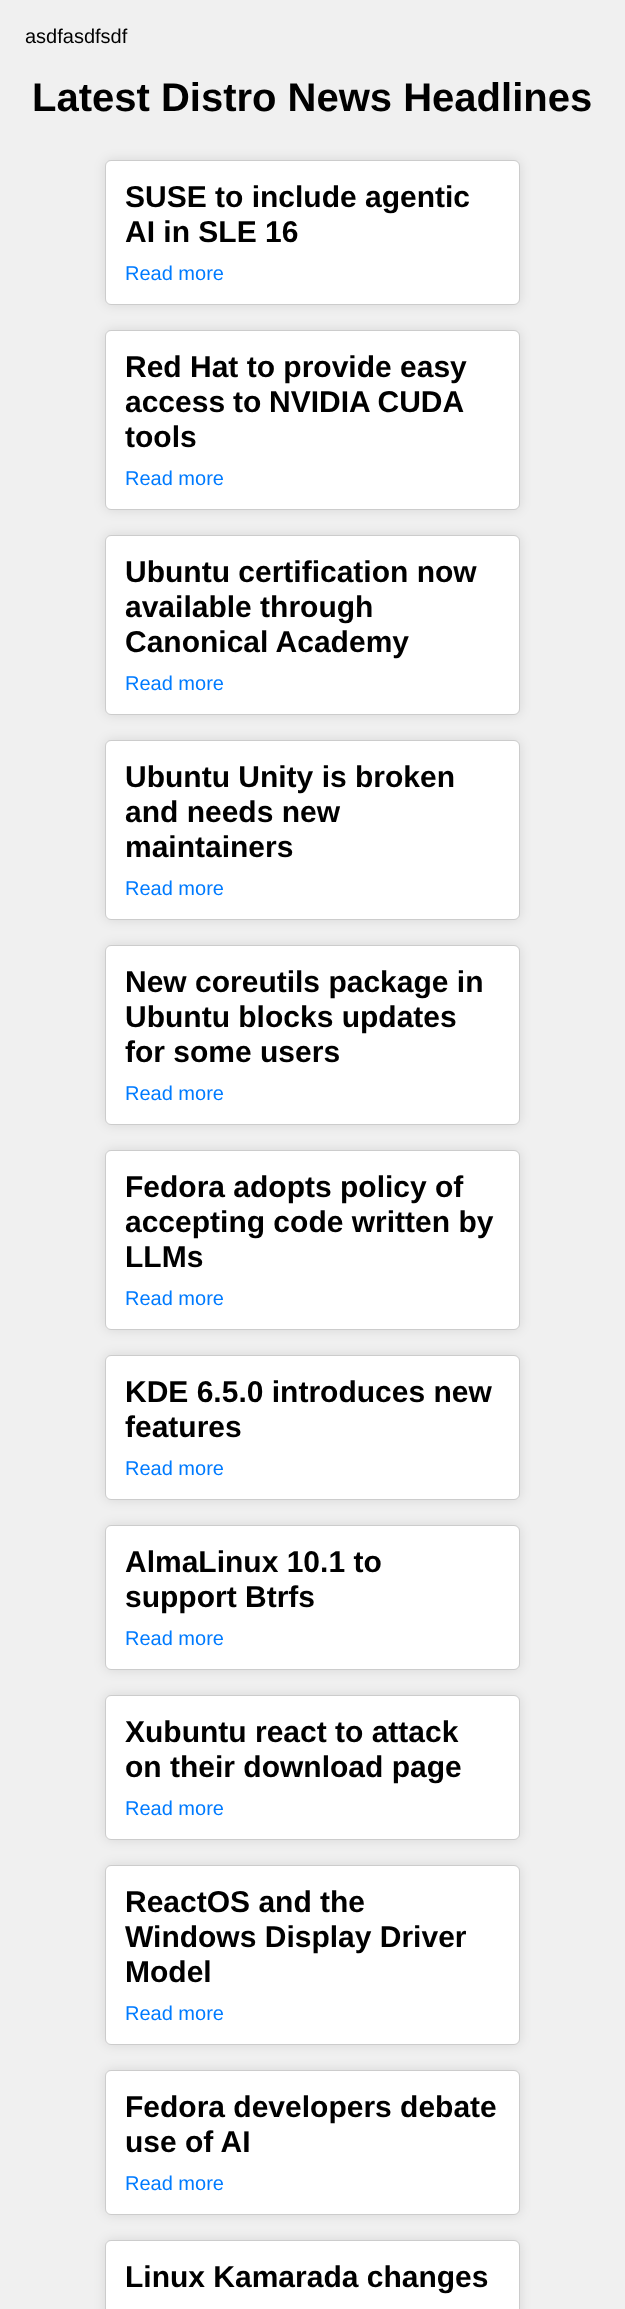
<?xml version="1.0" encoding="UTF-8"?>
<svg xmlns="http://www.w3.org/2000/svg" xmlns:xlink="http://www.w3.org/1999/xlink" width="625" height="2309">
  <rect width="100%" height="100%" fill="#f0f0f0" />
  <rect x="105" y="160" width="415" height="145" rx="6" fill="#000000" fill-opacity="0.1" filter="blur(6px)" />
  <rect x="105.5" y="160.5" width="414" height="144" rx="5.5" fill="#ffffff" stroke="#cccccc" />
  <rect x="105" y="330" width="415" height="180" rx="6" fill="#000000" fill-opacity="0.1" filter="blur(6px)" />
  <rect x="105.5" y="330.5" width="414" height="179" rx="5.5" fill="#ffffff" stroke="#cccccc" />
  <rect x="105" y="535" width="415" height="180" rx="6" fill="#000000" fill-opacity="0.1" filter="blur(6px)" />
  <rect x="105.5" y="535.5" width="414" height="179" rx="5.5" fill="#ffffff" stroke="#cccccc" />
  <rect x="105" y="740" width="415" height="180" rx="6" fill="#000000" fill-opacity="0.1" filter="blur(6px)" />
  <rect x="105.5" y="740.5" width="414" height="179" rx="5.5" fill="#ffffff" stroke="#cccccc" />
  <rect x="105" y="945" width="415" height="180" rx="6" fill="#000000" fill-opacity="0.1" filter="blur(6px)" />
  <rect x="105.5" y="945.5" width="414" height="179" rx="5.5" fill="#ffffff" stroke="#cccccc" />
  <rect x="105" y="1150" width="415" height="180" rx="6" fill="#000000" fill-opacity="0.1" filter="blur(6px)" />
  <rect x="105.5" y="1150.5" width="414" height="179" rx="5.5" fill="#ffffff" stroke="#cccccc" />
  <rect x="105" y="1355" width="415" height="145" rx="6" fill="#000000" fill-opacity="0.1" filter="blur(6px)" />
  <rect x="105.5" y="1355.5" width="414" height="144" rx="5.5" fill="#ffffff" stroke="#cccccc" />
  <rect x="105" y="1525" width="415" height="145" rx="6" fill="#000000" fill-opacity="0.1" filter="blur(6px)" />
  <rect x="105.5" y="1525.5" width="414" height="144" rx="5.5" fill="#ffffff" stroke="#cccccc" />
  <rect x="105" y="1695" width="415" height="145" rx="6" fill="#000000" fill-opacity="0.1" filter="blur(6px)" />
  <rect x="105.5" y="1695.5" width="414" height="144" rx="5.5" fill="#ffffff" stroke="#cccccc" />
  <rect x="105" y="1865" width="415" height="180" rx="6" fill="#000000" fill-opacity="0.1" filter="blur(6px)" />
  <rect x="105.5" y="1865.5" width="414" height="179" rx="5.5" fill="#ffffff" stroke="#cccccc" />
  <rect x="105" y="2070" width="415" height="145" rx="6" fill="#000000" fill-opacity="0.1" filter="blur(6px)" />
  <rect x="105.5" y="2070.5" width="414" height="144" rx="5.5" fill="#ffffff" stroke="#cccccc" />
  <rect x="105" y="2240" width="415" height="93" rx="6" fill="#000000" fill-opacity="0.1" filter="blur(6px)" />
  <rect x="105.5" y="2240.5" width="414" height="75" rx="5.5" fill="#ffffff" stroke="#cccccc" />
  <text x="25" y="43" style="font-family: Liberation Sans; font-size: 20px; fill: #000000">asdfasdfsdf</text>
  <text x="32" y="111" style="font-family: Liberation Sans; font-size: 40px; font-weight: bold; fill: #000000">Latest Distro News Headlines</text>
  <text x="125" y="207" style="font-family: Liberation Sans; font-size: 30px; font-weight: bold; fill: #000000">SUSE to include agentic</text>
  <text x="125" y="242" style="font-family: Liberation Sans; font-size: 30px; font-weight: bold; fill: #000000">AI in SLE 16</text>
  <text x="125" y="280" style="font-family: Liberation Sans; font-size: 20px; fill: #007bff">Read more</text>
  <text x="125" y="377" style="font-family: Liberation Sans; font-size: 30px; font-weight: bold; fill: #000000">Red Hat to provide easy</text>
  <text x="125" y="412" word-spacing="-0.5" style="font-family: Liberation Sans; font-size: 30px; font-weight: bold; fill: #000000">access to NVIDIA CUDA</text>
  <text x="125" y="447" style="font-family: Liberation Sans; font-size: 30px; font-weight: bold; fill: #000000">tools</text>
  <text x="125" y="485" style="font-family: Liberation Sans; font-size: 20px; fill: #007bff">Read more</text>
  <text x="125" y="582" style="font-family: Liberation Sans; font-size: 30px; font-weight: bold; fill: #000000">Ubuntu certification now</text>
  <text x="125" y="617" style="font-family: Liberation Sans; font-size: 30px; font-weight: bold; fill: #000000">available through</text>
  <text x="125" y="652" style="font-family: Liberation Sans; font-size: 30px; font-weight: bold; fill: #000000">Canonical Academy</text>
  <text x="125" y="690" style="font-family: Liberation Sans; font-size: 20px; fill: #007bff">Read more</text>
  <text x="125" y="787" style="font-family: Liberation Sans; font-size: 30px; font-weight: bold; fill: #000000">Ubuntu Unity is broken</text>
  <text x="125" y="822" style="font-family: Liberation Sans; font-size: 30px; font-weight: bold; fill: #000000">and needs new</text>
  <text x="125" y="857" style="font-family: Liberation Sans; font-size: 30px; font-weight: bold; fill: #000000">maintainers</text>
  <text x="125" y="895" style="font-family: Liberation Sans; font-size: 20px; fill: #007bff">Read more</text>
  <text x="125" y="992" style="font-family: Liberation Sans; font-size: 30px; font-weight: bold; fill: #000000">New coreutils package in</text>
  <text x="125" y="1027" style="font-family: Liberation Sans; font-size: 30px; font-weight: bold; fill: #000000">Ubuntu blocks updates</text>
  <text x="125" y="1062" style="font-family: Liberation Sans; font-size: 30px; font-weight: bold; fill: #000000">for some users</text>
  <text x="125" y="1100" style="font-family: Liberation Sans; font-size: 20px; fill: #007bff">Read more</text>
  <text x="125" y="1197" style="font-family: Liberation Sans; font-size: 30px; font-weight: bold; fill: #000000">Fedora adopts policy of</text>
  <text x="125" y="1232" style="font-family: Liberation Sans; font-size: 30px; font-weight: bold; fill: #000000">accepting code written by</text>
  <text x="125" y="1267" style="font-family: Liberation Sans; font-size: 30px; font-weight: bold; fill: #000000">LLMs</text>
  <text x="125" y="1305" style="font-family: Liberation Sans; font-size: 20px; fill: #007bff">Read more</text>
  <text x="125" y="1402" style="font-family: Liberation Sans; font-size: 30px; font-weight: bold; fill: #000000">KDE 6.5.0 introduces new</text>
  <text x="125" y="1437" style="font-family: Liberation Sans; font-size: 30px; font-weight: bold; fill: #000000">features</text>
  <text x="125" y="1475" style="font-family: Liberation Sans; font-size: 20px; fill: #007bff">Read more</text>
  <text x="125" y="1572" style="font-family: Liberation Sans; font-size: 30px; font-weight: bold; fill: #000000">AlmaLinux 10.1 to</text>
  <text x="125" y="1607" style="font-family: Liberation Sans; font-size: 30px; font-weight: bold; fill: #000000">support Btrfs</text>
  <text x="125" y="1645" style="font-family: Liberation Sans; font-size: 20px; fill: #007bff">Read more</text>
  <text x="125" y="1742" style="font-family: Liberation Sans; font-size: 30px; font-weight: bold; fill: #000000">Xubuntu react to attack</text>
  <text x="125" y="1777" style="font-family: Liberation Sans; font-size: 30px; font-weight: bold; fill: #000000">on their download page</text>
  <text x="125" y="1815" style="font-family: Liberation Sans; font-size: 20px; fill: #007bff">Read more</text>
  <text x="125" y="1912" style="font-family: Liberation Sans; font-size: 30px; font-weight: bold; fill: #000000">ReactOS and the</text>
  <text x="125" y="1947" style="font-family: Liberation Sans; font-size: 30px; font-weight: bold; fill: #000000">Windows Display Driver</text>
  <text x="125" y="1982" style="font-family: Liberation Sans; font-size: 30px; font-weight: bold; fill: #000000">Model</text>
  <text x="125" y="2020" style="font-family: Liberation Sans; font-size: 20px; fill: #007bff">Read more</text>
  <text x="125" y="2117" style="font-family: Liberation Sans; font-size: 30px; font-weight: bold; fill: #000000">Fedora developers debate</text>
  <text x="125" y="2152" style="font-family: Liberation Sans; font-size: 30px; font-weight: bold; fill: #000000">use of AI</text>
  <text x="125" y="2190" style="font-family: Liberation Sans; font-size: 20px; fill: #007bff">Read more</text>
  <text x="125" y="2287" style="font-family: Liberation Sans; font-size: 30px; font-weight: bold; fill: #000000">Linux Kamarada changes</text>
</svg>
